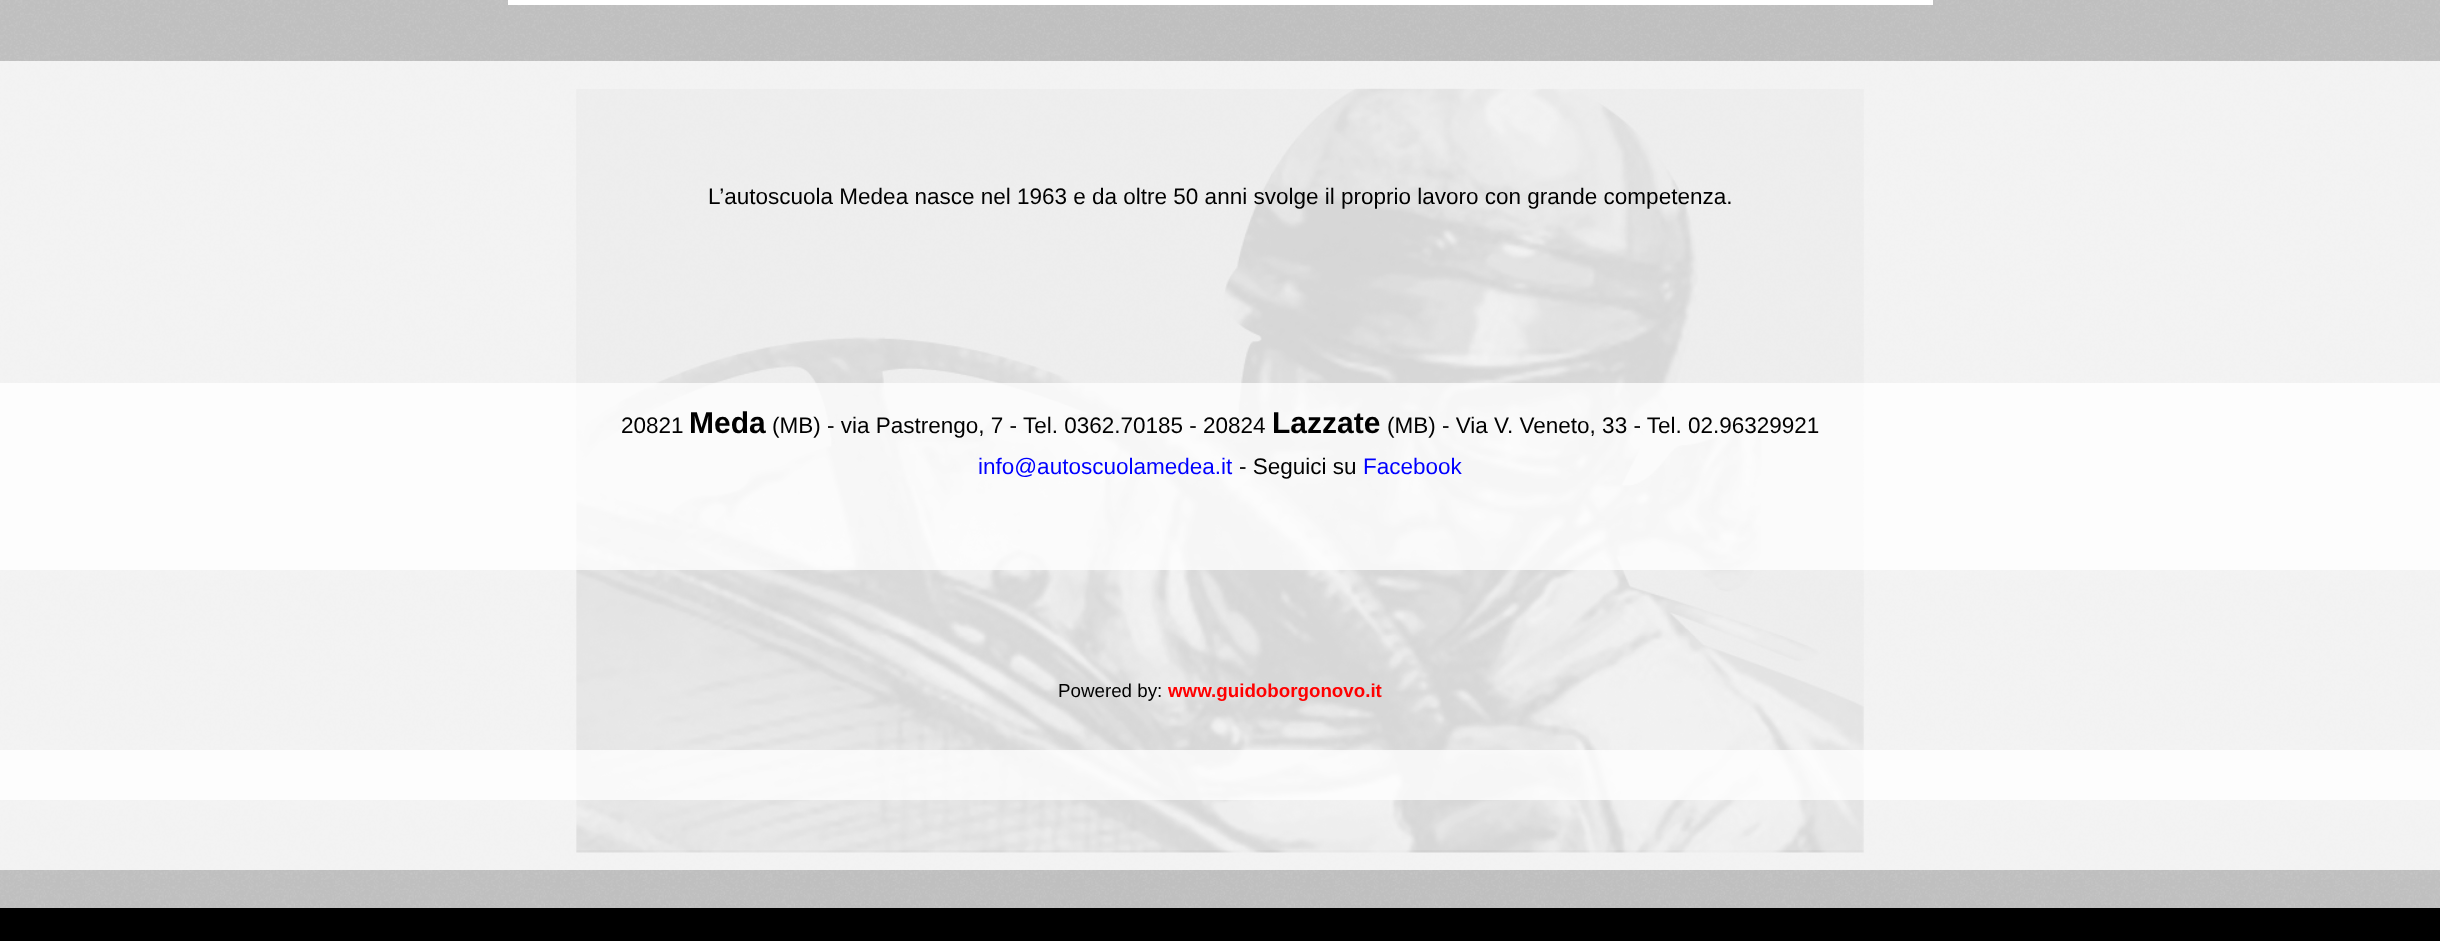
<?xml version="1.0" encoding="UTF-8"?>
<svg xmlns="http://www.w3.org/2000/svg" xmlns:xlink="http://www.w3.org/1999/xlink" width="2440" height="941">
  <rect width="100%" height="100%" fill="#ffffff" />
  <image x="576" y="88" width="1288" height="765" xlink:href="image1.png" />
  <image x="0" y="0" width="2440" height="908" xlink:href="image2.png" />
  <rect x="515.5" y="-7.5" width="1410" height="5" fill="none" stroke="#ffffff" stroke-width="15" />
  <rect y="61" width="2440" height="809" fill="#ffffff" fill-opacity="0.8" />
  <rect x="576" y="88" width="1288" height="295" fill="#ffffff" fill-opacity="0.15" />
  <rect y="383" width="2440" height="187" fill="#ffffff" fill-opacity="0.8" />
  <rect x="576" y="570" width="1288" height="180" fill="#ffffff" fill-opacity="0.15" />
  <rect y="750" width="2440" height="50" fill="#ffffff" fill-opacity="0.8" />
  <rect x="576" y="800" width="1288" height="50" fill="#ffffff" fill-opacity="0.15" />
  <rect y="908" width="2440" height="33" fill="#000000" />
  <text x="708" y="204" style="font-family: Liberation Sans; font-size: 22.5px; fill: #000000">L’autoscuola Medea nasce nel 1963 e da oltre 50 anni svolge il proprio lavoro con grande competenza.</text>
  <text x="621" y="433" style="font-family: Liberation Sans; font-size: 22.5px; fill: #000000">20821</text>
  <text x="689" y="433" style="font-family: Liberation Sans; font-size: 30px; font-weight: bold; fill: #000000">Meda</text>
  <text x="772" y="433" style="font-family: Liberation Sans; font-size: 22.5px; fill: #000000">(MB) - via Pastrengo, 7 - Tel. 0362.70185 - 20824</text>
  <text x="1272" y="433" style="font-family: Liberation Sans; font-size: 30px; font-weight: bold; fill: #000000">Lazzate</text>
  <text x="1387" y="433" style="font-family: Liberation Sans; font-size: 22.5px; fill: #000000">(MB) - Via V. Veneto, 33 - Tel. 02.96329921</text>
  <text x="978" y="474" style="font-family: Liberation Sans; font-size: 22.5px; fill: #0000ff">info@autoscuolamedea.it</text>
  <text x="1239" y="474" style="font-family: Liberation Sans; font-size: 22.5px; fill: #000000">- Seguici su</text>
  <text x="1363" y="474" style="font-family: Liberation Sans; font-size: 22.5px; fill: #0000ff">Facebook</text>
  <text x="1058" y="697" style="font-family: Liberation Sans; font-size: 18.75px; fill: #000000">Powered by:</text>
  <text x="1168" y="697" style="font-family: Liberation Sans; font-size: 18.75px; font-weight: bold; fill: #ff0000">www.guidoborgonovo.it</text>
</svg>
